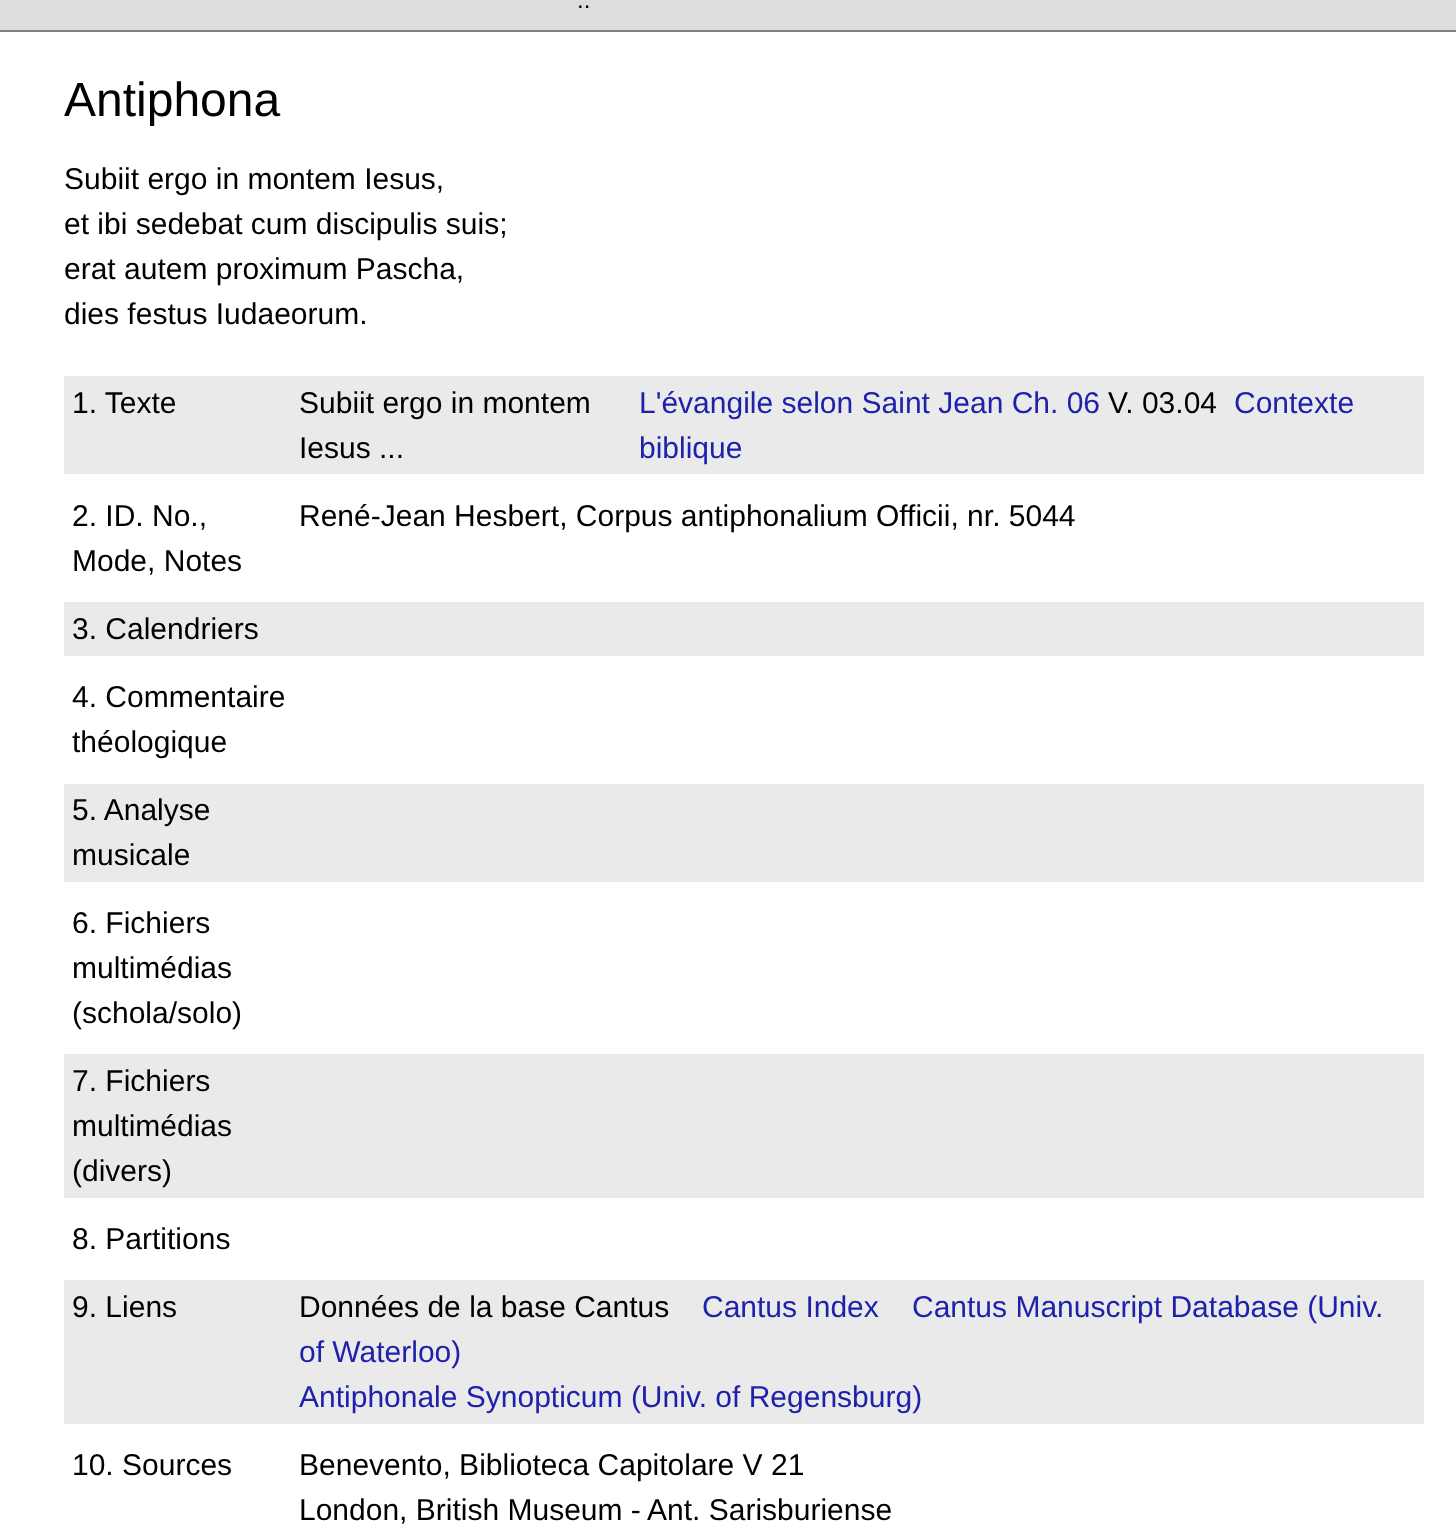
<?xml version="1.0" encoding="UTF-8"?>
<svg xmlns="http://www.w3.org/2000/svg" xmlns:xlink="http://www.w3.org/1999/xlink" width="1456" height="1533">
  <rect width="100%" height="100%" fill="#ffffff" />
  <rect width="1456" height="30" fill="#dddddd" />
  <rect y="30" width="1456" height="2" fill="#808080" />
  <rect x="64" y="376" width="1360" height="98" fill="#eaeaea" />
  <rect x="64" y="602" width="1360" height="54" fill="#eaeaea" />
  <rect x="64" y="784" width="1360" height="98" fill="#eaeaea" />
  <rect x="64" y="1054" width="1360" height="144" fill="#eaeaea" />
  <rect x="64" y="1280" width="1360" height="144" fill="#eaeaea" />
  <text x="577" y="8" style="font-family: Liberation Sans; font-size: 24px; fill: #000000">..</text>
  <text x="64" y="116" style="font-family: Liberation Sans; font-size: 48px; fill: #000000">Antiphona</text>
  <text x="64" y="189" style="font-family: Liberation Sans; font-size: 30px; fill: #000000">Subiit ergo in montem Iesus,</text>
  <text x="64" y="234" style="font-family: Liberation Sans; font-size: 30px; fill: #000000">et ibi sedebat cum discipulis suis;</text>
  <text x="64" y="279" style="font-family: Liberation Sans; font-size: 30px; fill: #000000">erat autem proximum Pascha,</text>
  <text x="64" y="324" style="font-family: Liberation Sans; font-size: 30px; fill: #000000">dies festus Iudaeorum.</text>
  <text x="72" y="413" style="font-family: Liberation Sans; font-size: 30px; fill: #000000">1. Texte</text>
  <text x="299" y="413" style="font-family: Liberation Sans; font-size: 30px; fill: #000000">Subiit ergo in montem</text>
  <text x="299" y="458" style="font-family: Liberation Sans; font-size: 30px; fill: #000000">Iesus ...</text>
  <text x="639" y="413" style="font-family: Liberation Sans; font-size: 30px; fill: #1e22aa">L'évangile selon Saint Jean Ch. 06</text>
  <text x="1108" y="413" style="font-family: Liberation Sans; font-size: 30px; fill: #000000">V. 03.04</text>
  <text x="1234" y="413" style="font-family: Liberation Sans; font-size: 30px; fill: #1e22aa">Contexte</text>
  <text x="639" y="458" style="font-family: Liberation Sans; font-size: 30px; fill: #1e22aa">biblique</text>
  <text x="72" y="526" style="font-family: Liberation Sans; font-size: 30px; fill: #000000">2. ID. No.,</text>
  <text x="72" y="571" style="font-family: Liberation Sans; font-size: 30px; fill: #000000">Mode, Notes</text>
  <text x="299" y="526" style="font-family: Liberation Sans; font-size: 30px; fill: #000000">René-Jean Hesbert, Corpus antiphonalium Officii, nr. 5044</text>
  <text x="72" y="639" style="font-family: Liberation Sans; font-size: 30px; fill: #000000">3. Calendriers</text>
  <text x="72" y="707" style="font-family: Liberation Sans; font-size: 30px; fill: #000000">4. Commentaire</text>
  <text x="72" y="752" style="font-family: Liberation Sans; font-size: 30px; fill: #000000">théologique</text>
  <text x="72" y="820" style="font-family: Liberation Sans; font-size: 30px; fill: #000000">5. Analyse</text>
  <text x="72" y="865" style="font-family: Liberation Sans; font-size: 30px; fill: #000000">musicale</text>
  <text x="72" y="933" style="font-family: Liberation Sans; font-size: 30px; fill: #000000">6. Fichiers</text>
  <text x="72" y="978" style="font-family: Liberation Sans; font-size: 30px; fill: #000000">multimédias</text>
  <text x="72" y="1023" style="font-family: Liberation Sans; font-size: 30px; fill: #000000">(schola/solo)</text>
  <text x="72" y="1091" style="font-family: Liberation Sans; font-size: 30px; fill: #000000">7. Fichiers</text>
  <text x="72" y="1136" style="font-family: Liberation Sans; font-size: 30px; fill: #000000">multimédias</text>
  <text x="72" y="1181" style="font-family: Liberation Sans; font-size: 30px; fill: #000000">(divers)</text>
  <text x="72" y="1249" style="font-family: Liberation Sans; font-size: 30px; fill: #000000">8. Partitions</text>
  <text x="72" y="1317" style="font-family: Liberation Sans; font-size: 30px; fill: #000000">9. Liens</text>
  <text x="299" y="1317" style="font-family: Liberation Sans; font-size: 30px; fill: #000000">Données de la base Cantus</text>
  <text x="702" y="1317" style="font-family: Liberation Sans; font-size: 30px; fill: #1e22aa">Cantus Index</text>
  <text x="912" y="1317" style="font-family: Liberation Sans; font-size: 30px; fill: #1e22aa">Cantus Manuscript Database (Univ.</text>
  <text x="299" y="1362" style="font-family: Liberation Sans; font-size: 30px; fill: #1e22aa">of Waterloo)</text>
  <text x="299" y="1407" style="font-family: Liberation Sans; font-size: 30px; fill: #1e22aa">Antiphonale Synopticum (Univ. of Regensburg)</text>
  <text x="72" y="1475" style="font-family: Liberation Sans; font-size: 30px; fill: #000000">10. Sources</text>
  <text x="299" y="1475" style="font-family: Liberation Sans; font-size: 30px; fill: #000000">Benevento, Biblioteca Capitolare V 21</text>
  <text x="299" y="1520" style="font-family: Liberation Sans; font-size: 30px; fill: #000000">London, British Museum -</text>
  <text x="647" y="1520" style="font-family: Liberation Sans; font-size: 30px; fill: #000000">Ant. Sarisburiense</text>
</svg>
